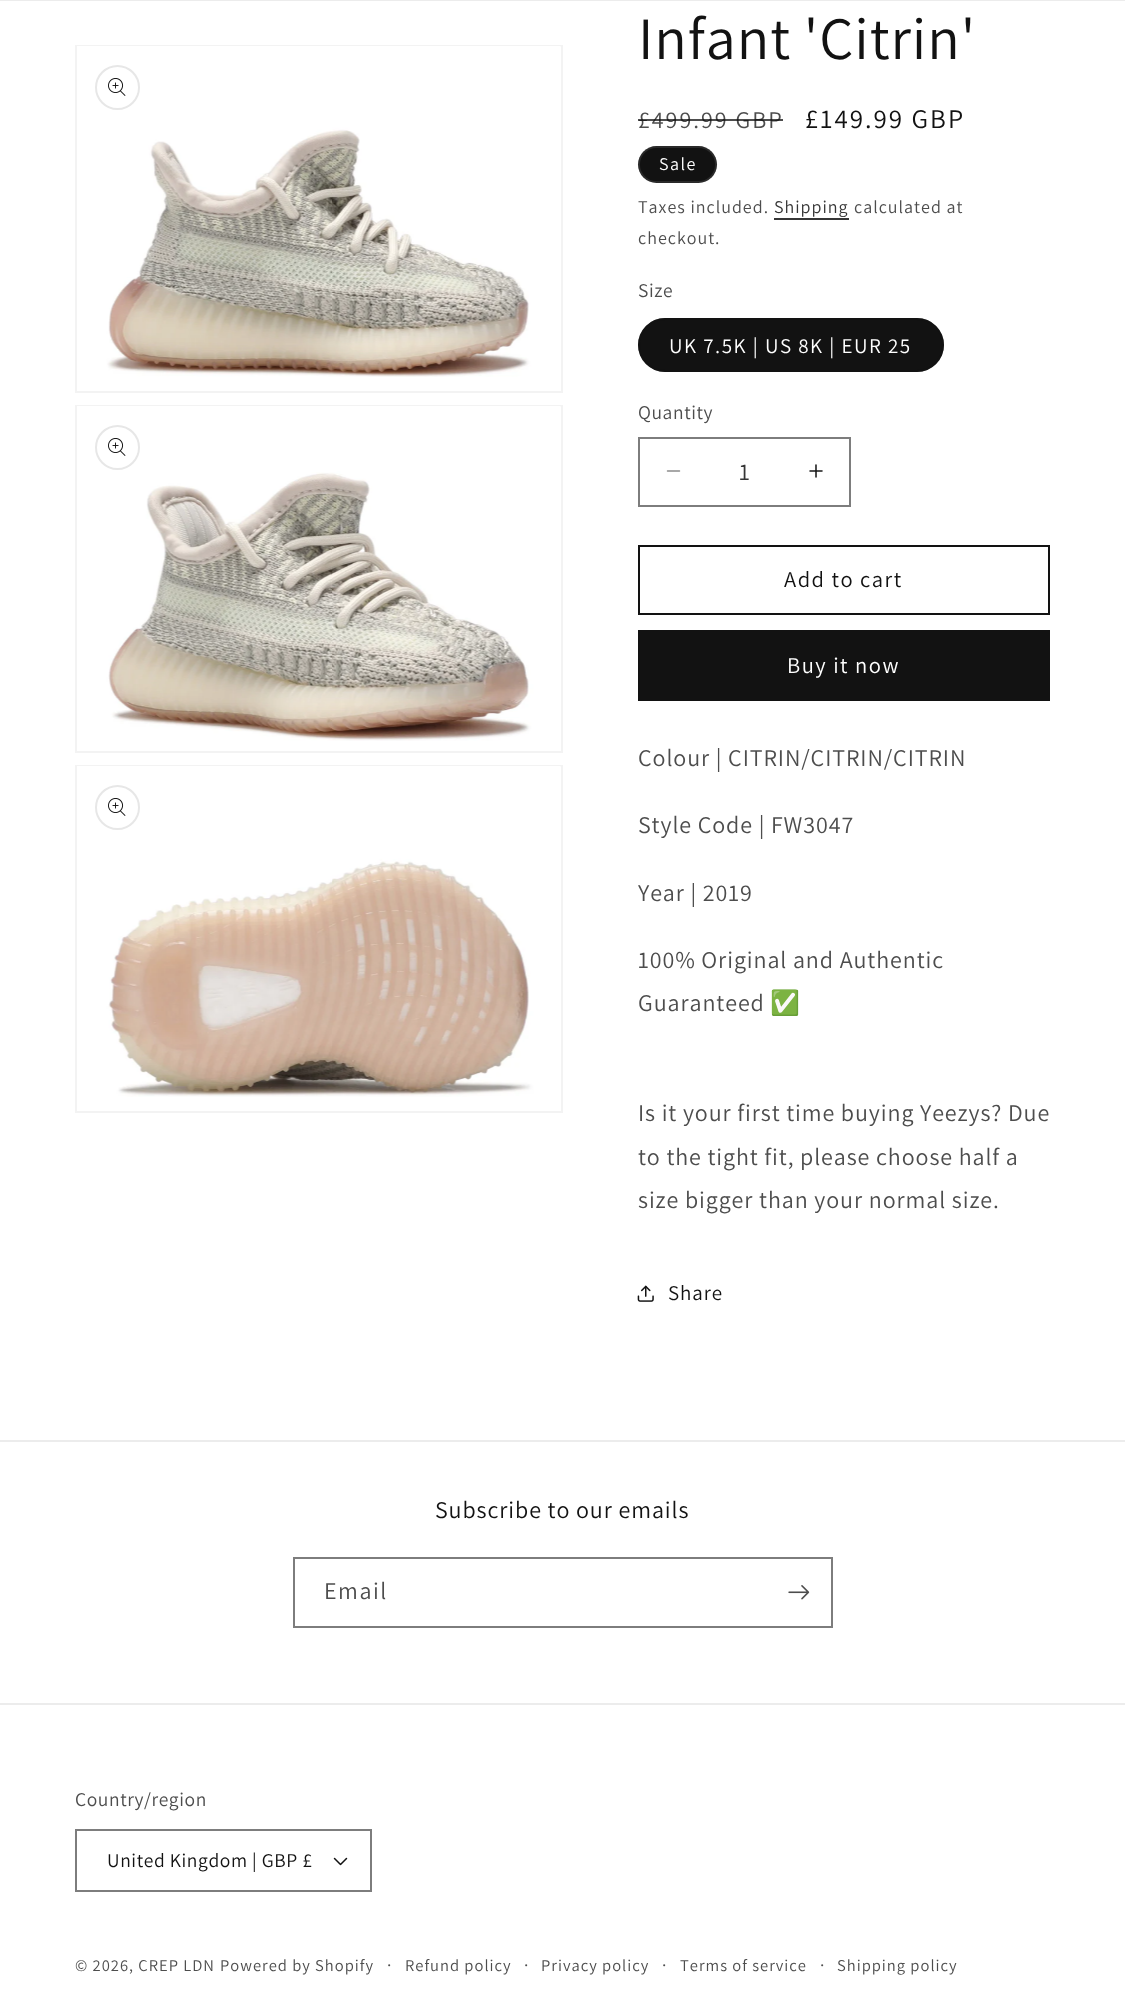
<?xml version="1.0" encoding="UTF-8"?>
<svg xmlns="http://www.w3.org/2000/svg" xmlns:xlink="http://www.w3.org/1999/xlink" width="1125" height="2003">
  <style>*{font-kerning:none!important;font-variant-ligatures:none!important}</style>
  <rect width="100%" height="100%" fill="#ffffff" />
  <rect width="1125" height="1" fill="#ececec" />
  <rect x="76" y="46" width="486" height="346" fill="none" stroke="#f3f3f3" stroke-width="2" />
  <image x="77" y="46" width="484" height="331" xlink:href="image1.png" />
  <circle cx="117.5" cy="87.5" r="21.5" fill="none" stroke="#e7e7e7" stroke-width="2" />
  <image x="108" y="78" width="18" height="18" xlink:href="image2.png" />
  <rect x="76" y="406" width="486" height="346" fill="none" stroke="#f3f3f3" stroke-width="2" />
  <image x="77" y="406" width="484" height="335" xlink:href="image3.png" />
  <circle cx="117.5" cy="447.5" r="21.5" fill="none" stroke="#e7e7e7" stroke-width="2" />
  <image x="108" y="438" width="18" height="18" xlink:href="image2.png" />
  <rect x="76" y="766" width="486" height="346" fill="none" stroke="#f3f3f3" stroke-width="2" />
  <image x="77" y="766" width="484" height="331" xlink:href="image4.png" />
  <circle cx="117.5" cy="807.5" r="21.5" fill="none" stroke="#e7e7e7" stroke-width="2" />
  <image x="108" y="798" width="18" height="18" xlink:href="image2.png" />
  <rect x="638" y="146" width="79" height="37" rx="18.5" fill="#121212" />
  <rect x="639" y="147" width="77" height="35" rx="17.5" fill="none" stroke="#ffffff" stroke-opacity="0.1" stroke-width="2" />
  <rect x="774" y="218" width="75" height="2" fill="#363636" />
  <rect x="638" y="318" width="306" height="54" rx="27" fill="#121212" />
  <rect x="639" y="319" width="304" height="52" rx="26" fill="none" stroke="#121212" stroke-opacity="0.55" stroke-width="2" />
  <image x="666" y="470" width="15" height="2" xlink:href="image5.png" />
  <image x="809" y="464" width="14" height="14" xlink:href="image6.png" />
  <rect x="639" y="438" width="211" height="68" fill="none" stroke="#7d7d7d" stroke-width="2" />
  <rect x="639" y="546" width="410" height="68" fill="none" stroke="#121212" stroke-width="2" />
  <rect x="638" y="630" width="412" height="71" fill="#121212" />
  <image x="637" y="1285" width="17" height="17" xlink:href="image7.png" />
  <rect y="1440" width="1125" height="2" fill="#ececec" />
  <rect x="294" y="1558" width="538" height="69" fill="none" stroke="#7d7d7d" stroke-width="2" />
  <image x="788" y="1585" width="22" height="15" xlink:href="image8.png" />
  <rect y="1703" width="1125" height="2" fill="#ececec" />
  <image x="333" y="1857" width="15" height="9" xlink:href="image9.png" />
  <rect x="76" y="1830" width="295" height="61" fill="none" stroke="#7d7d7d" stroke-width="2" />
  <text x="638" y="59" style="font-family: Assistant; font-size: 60px; letter-spacing: 0.9px; fill: #121212">Infant 'Citrin'</text>
  <text x="638" y="128" style="font-family: Assistant; font-size: 24px; letter-spacing: 2px; fill: #4d4d4d">£499.99 GBP</text>
  <rect x="638" y="119" width="145" height="2" fill="#121212" fill-opacity="0.75" />
  <text x="805" y="128" style="font-family: Assistant; font-size: 27px; letter-spacing: 2px; fill: #121212">£149.99 GBP</text>
  <text x="659" y="170" style="font-family: Assistant; font-size: 18px; letter-spacing: 1.5px; fill: #ffffff">Sale</text>
  <text x="638" y="213" style="font-family: Assistant; font-size: 18px; letter-spacing: 1px; fill: #4d4d4d">Taxes included.</text>
  <text x="774" y="213" style="font-family: Assistant; font-size: 18px; letter-spacing: 1px; fill: #363636">Shipping</text>
  <text x="854" y="213" style="font-family: Assistant; font-size: 18px; letter-spacing: 1px; fill: #4d4d4d">calculated at</text>
  <text x="638" y="244" style="font-family: Assistant; font-size: 18px; letter-spacing: 1px; fill: #4d4d4d">checkout.</text>
  <text x="638" y="297" style="font-family: Assistant; font-size: 19.5px; letter-spacing: 0.6px; fill: #4d4d4d">Size</text>
  <text x="669" y="353" style="font-family: Assistant; font-size: 21px; letter-spacing: 1.5px; fill: #ffffff">UK 7.5K | US 8K | EUR 25</text>
  <text x="638" y="419" style="font-family: Assistant; font-size: 19.5px; letter-spacing: 0.6px; fill: #4d4d4d">Quantity</text>
  <text x="739" y="480" style="font-family: Assistant; font-size: 24px; fill: #363636">1</text>
  <text x="784" y="587" style="font-family: Assistant; font-size: 22.5px; letter-spacing: 1.5px; fill: #121212">Add to cart</text>
  <text x="787" y="673" style="font-family: Assistant; font-size: 22.5px; letter-spacing: 1.5px; fill: #ffffff">Buy it now</text>
  <text x="638" y="766" style="font-family: Assistant; font-size: 24px; letter-spacing: 0.9px; fill: #4d4d4d">Colour | CITRIN/CITRIN/CITRIN</text>
  <text x="638" y="833" style="font-family: Assistant; font-size: 24px; letter-spacing: 0.9px; fill: #4d4d4d">Style Code | FW3047</text>
  <text x="638" y="901" style="font-family: Assistant; font-size: 24px; letter-spacing: 0.9px; fill: #4d4d4d">Year | 2019</text>
  <text x="638" y="968" style="font-family: Assistant; font-size: 24px; letter-spacing: 0.9px; fill: #4d4d4d">100% Original and Authentic</text>
  <text x="638" y="1011" style="font-family: Assistant; font-size: 24px; letter-spacing: 0.9px; fill: #4d4d4d">Guaranteed</text>
  <text x="770" y="1011" style="font-family: Noto Color Emoji; font-size: 24px; letter-spacing: 0.9px; fill: #4d4d4d">✅</text>
  <text x="638" y="1121" style="font-family: Assistant; font-size: 24px; letter-spacing: 0.9px; fill: #4d4d4d">Is it your first time buying Yeezys? Due</text>
  <text x="638" y="1165" style="font-family: Assistant; font-size: 24px; letter-spacing: 0.9px; fill: #4d4d4d">to the tight fit, please choose half a</text>
  <text x="638" y="1208" style="font-family: Assistant; font-size: 24px; letter-spacing: 0.9px; fill: #4d4d4d">size bigger than your normal size.</text>
  <text x="668" y="1300" style="font-family: Assistant; font-size: 21px; letter-spacing: 0.9px; fill: #121212">Share</text>
  <text x="435" y="1518" style="font-family: Assistant; font-size: 24px; letter-spacing: 0.9px; fill: #121212">Subscribe to our emails</text>
  <text x="324" y="1599" style="font-family: Assistant; font-size: 24px; letter-spacing: 1.5px; fill: #4d4d4d">Email</text>
  <text x="75" y="1806" style="font-family: Assistant; font-size: 19.5px; letter-spacing: 0.6px; fill: #4d4d4d">Country/region</text>
  <text x="107" y="1867" style="font-family: Assistant; font-size: 19.5px; letter-spacing: 0.6px; fill: #121212">United Kingdom | GBP £</text>
  <text x="75" y="1971" style="font-family: Assistant; font-size: 16.5px; letter-spacing: 1px; fill: #4d4d4d">© 2026, CREP LDN</text>
  <text x="220" y="1971" style="font-family: Assistant; font-size: 16.5px; letter-spacing: 1px; fill: #4d4d4d">Powered by Shopify</text>
  <text x="387" y="1971" style="font-family: Assistant; font-size: 18px; letter-spacing: 1px; fill: #4d4d4d">·</text>
  <text x="405" y="1971" style="font-family: Assistant; font-size: 16.5px; letter-spacing: 1px; fill: #4d4d4d">Refund policy</text>
  <text x="524" y="1971" style="font-family: Assistant; font-size: 18px; letter-spacing: 1px; fill: #4d4d4d">·</text>
  <text x="541" y="1971" style="font-family: Assistant; font-size: 16.5px; letter-spacing: 1px; fill: #4d4d4d">Privacy policy</text>
  <text x="662" y="1971" style="font-family: Assistant; font-size: 18px; letter-spacing: 1px; fill: #4d4d4d">·</text>
  <text x="680" y="1971" style="font-family: Assistant; font-size: 16.5px; letter-spacing: 1px; fill: #4d4d4d">Terms of service</text>
  <text x="820" y="1971" style="font-family: Assistant; font-size: 18px; letter-spacing: 1px; fill: #4d4d4d">·</text>
  <text x="837" y="1971" style="font-family: Assistant; font-size: 16.5px; letter-spacing: 1px; fill: #4d4d4d">Shipping policy</text>
</svg>
